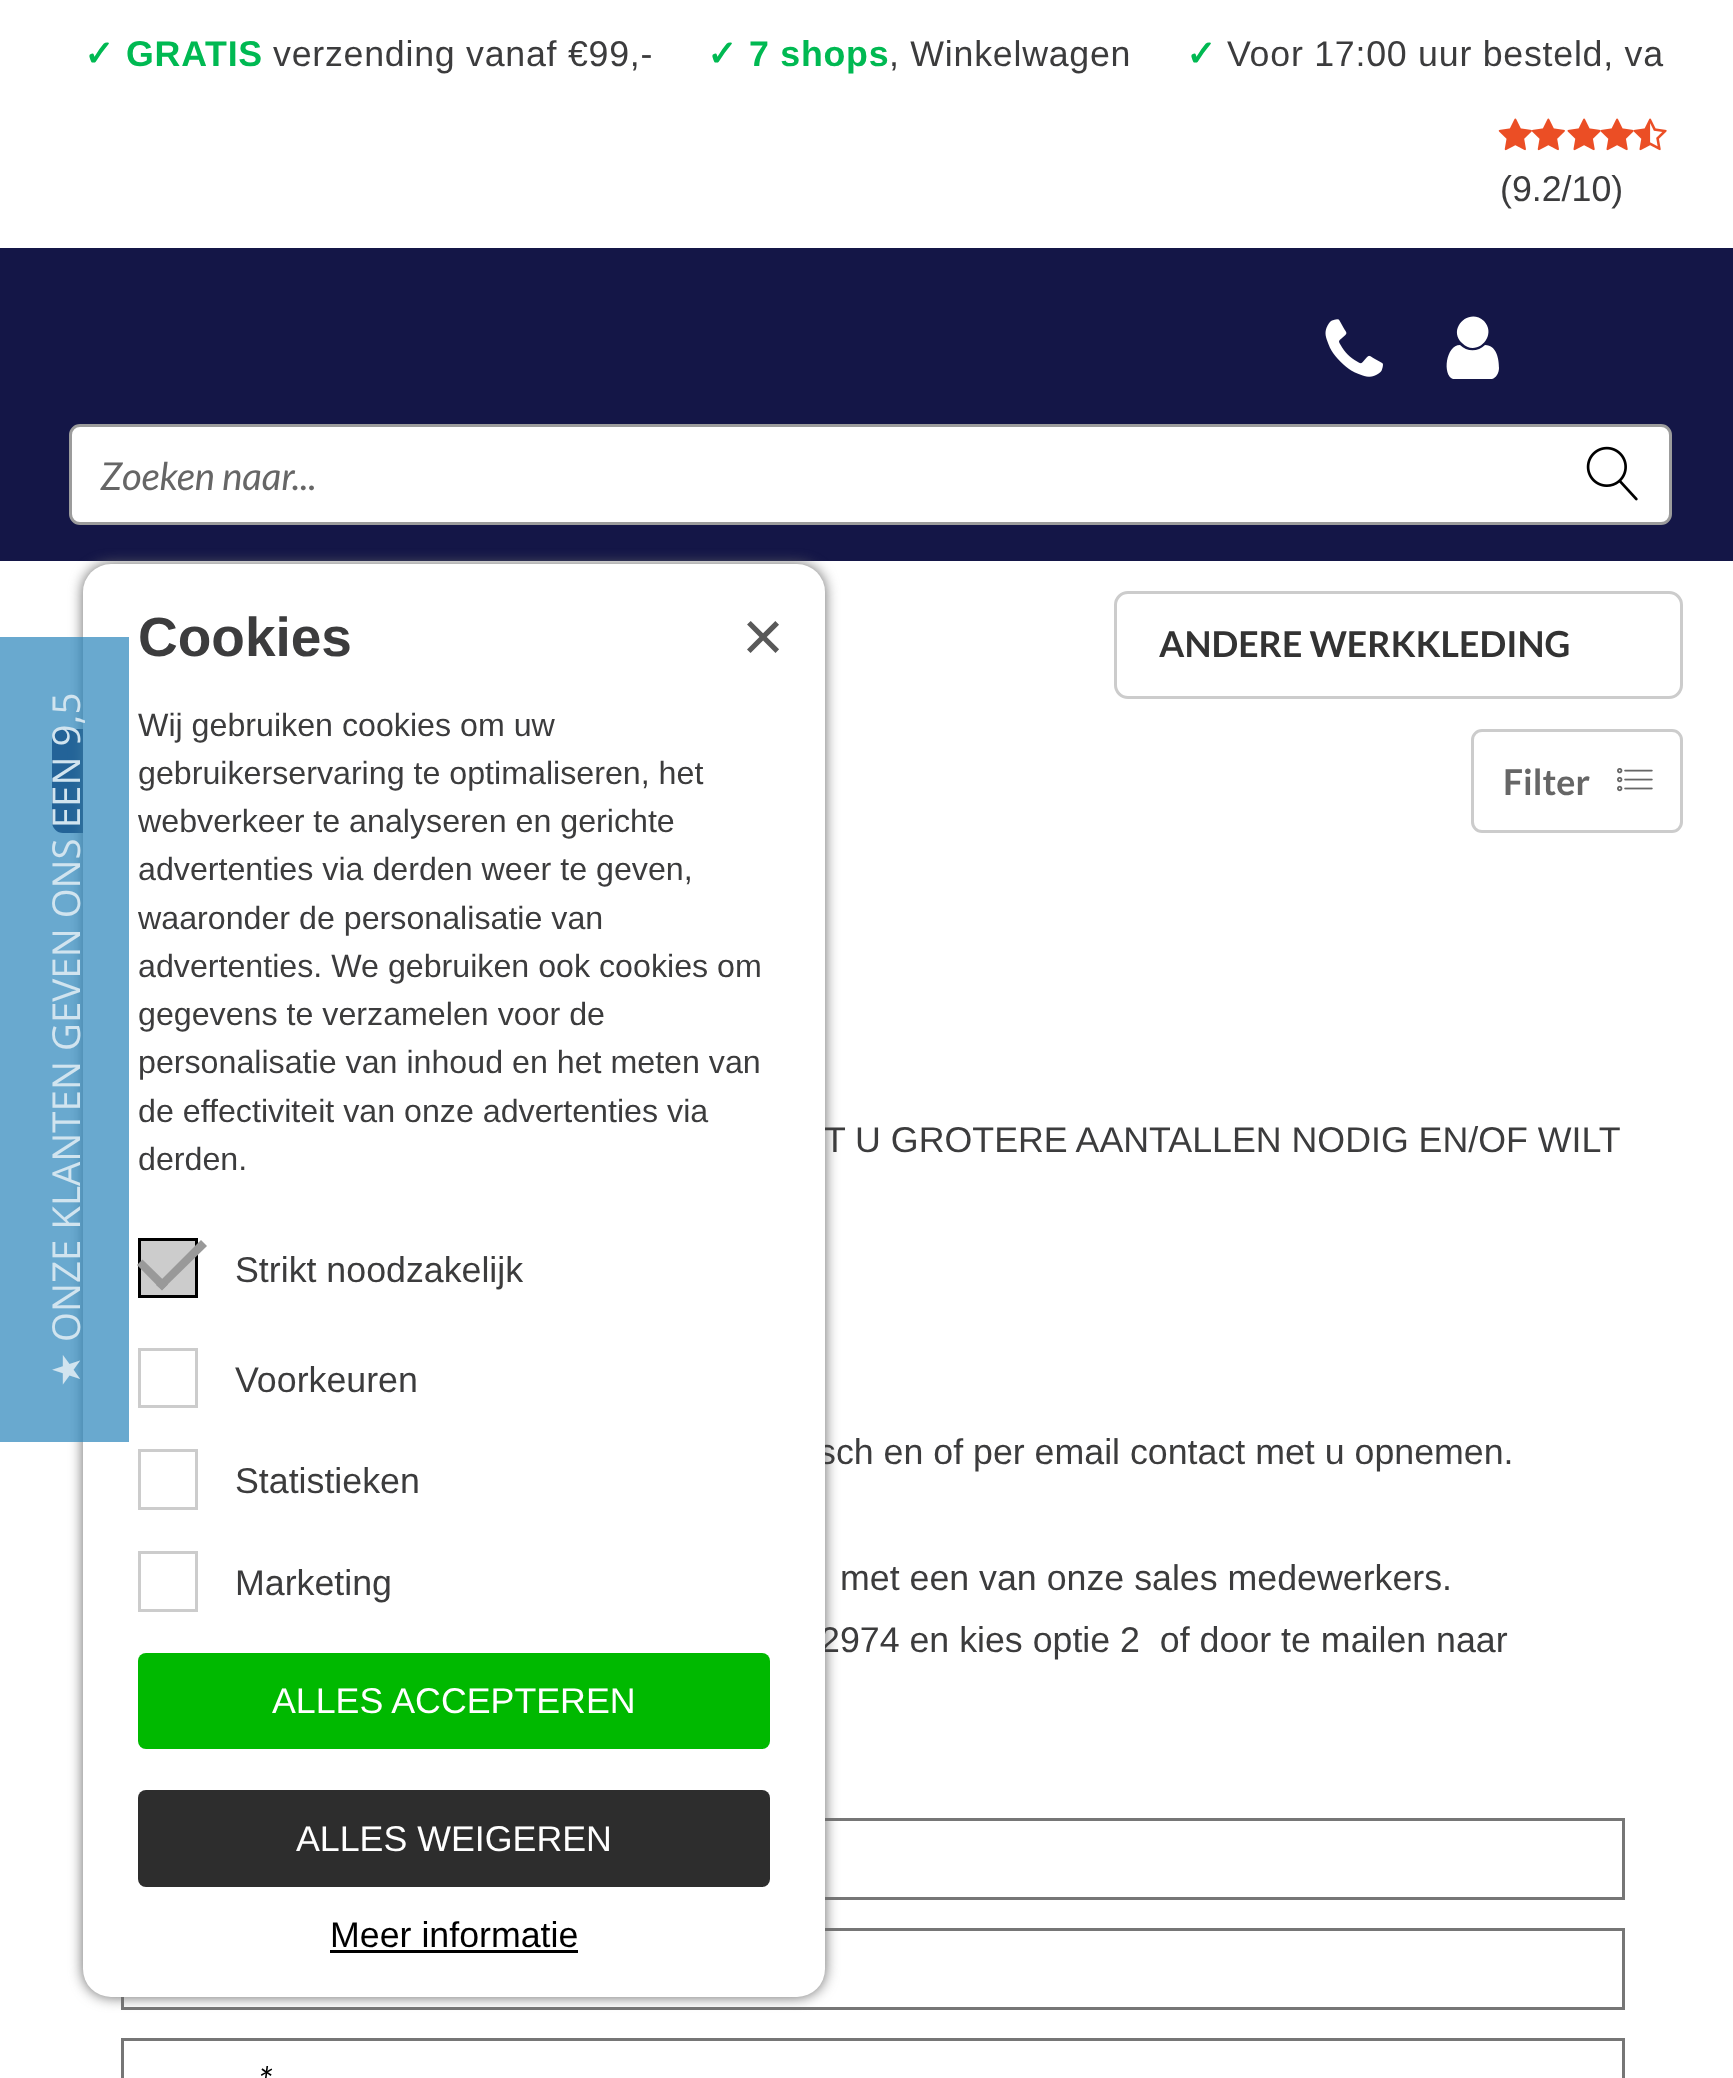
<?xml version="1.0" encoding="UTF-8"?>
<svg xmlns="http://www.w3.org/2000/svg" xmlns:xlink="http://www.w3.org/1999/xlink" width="1733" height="2078">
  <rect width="100%" height="100%" fill="#ffffff" />
  <image x="1498" y="118" width="34" height="33" xlink:href="image1.png" />
  <image x="1531" y="118" width="34" height="33" xlink:href="image2.png" />
  <image x="1567" y="118" width="34" height="33" xlink:href="image3.png" />
  <image x="1600" y="118" width="34" height="33" xlink:href="image4.png" />
  <image x="1633" y="118" width="34" height="33" xlink:href="image5.png" />
  <rect y="248" width="1733" height="313" fill="#141647" />
  <image x="1325" y="319" width="58" height="58" xlink:href="image6.png" />
  <path d="M 1499 368 c 0 5 -3 10 -7 11 h -31 h -8 c -11 -4 -7 -34 7 -34 c 7 7 18 7 25 0 c 12 0 14 15 14 23 z m -15 -47 c 14 15 -8 37 -22 22 c -15 -14 7 -36 22 -22 z" fill="#ffffff" />
  <rect x="70.5" y="425.5" width="1600" height="98" rx="9.5" fill="#ffffff" stroke="#9c9c9c" stroke-width="3" />
  <image x="1586" y="446" width="52" height="55" xlink:href="image7.png" />
  <rect x="1115.5" y="592.5" width="566" height="105" rx="12.5" fill="none" stroke="#cccccc" stroke-width="3" />
  <rect x="52" y="729" width="432" height="104" rx="11" fill="#141647" />
  <rect x="1472.5" y="730.5" width="209" height="101" rx="9.5" fill="none" stroke="#cccccc" stroke-width="3" />
  <image x="1617" y="768" width="36" height="24" xlink:href="image8.png" />
  <rect x="122.5" y="1819.5" width="1501" height="79" fill="none" stroke="#767676" stroke-width="3" />
  <rect x="122.5" y="1929.5" width="1501" height="79" fill="none" stroke="#767676" stroke-width="3" />
  <rect x="122.5" y="2039.5" width="1501" height="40" fill="none" stroke="#767676" stroke-width="3" />
  <rect x="83" y="564" width="742" height="1433" rx="28" fill="#666666" filter="blur(7px)" />
  <text x="84" y="66" style="font-family: DejaVu Sans; font-size: 35.75px; font-weight: bold; letter-spacing: 0.75px; fill: #00b952">✓</text>
  <text x="126" y="66" style="font-family: Liberation Sans; font-size: 35.75px; font-weight: bold; letter-spacing: 0.75px; fill: #00b952">GRATIS</text>
  <text x="273" y="66" style="font-family: Liberation Sans; font-size: 35.75px; letter-spacing: 0.75px; fill: #3c3c3d">verzending vanaf €99,-</text>
  <text x="707" y="66" style="font-family: DejaVu Sans; font-size: 35.75px; font-weight: bold; letter-spacing: 0.75px; fill: #00b952">✓</text>
  <text x="749" y="66" style="font-family: Liberation Sans; font-size: 35.75px; font-weight: bold; letter-spacing: 0.75px; fill: #00b952">7 shops</text>
  <text x="889" y="66" style="font-family: Liberation Sans; font-size: 35.75px; letter-spacing: 0.75px; fill: #3c3c3d">, Winkelwagen</text>
  <text x="1186" y="66" style="font-family: DejaVu Sans; font-size: 35.75px; font-weight: bold; letter-spacing: 0.75px; fill: #00b952">✓</text>
  <text x="1227" y="66" style="font-family: Liberation Sans; font-size: 35.75px; letter-spacing: 0.75px; fill: #3c3c3d">Voor 17:00 uur besteld, va</text>
  <text x="1500" y="201" style="font-family: Liberation Sans; font-size: 35.75px; fill: #3c3c3d">(9.2/10)</text>
  <text x="100" y="490" style="font-family: Lato; font-size: 38.5px; font-style: italic; fill: #666666">Zoeken naar...</text>
  <text x="1159" y="657" style="font-family: Lato; font-size: 35.75px; font-weight: bold; fill: #333333">ANDERE WERKKLEDING</text>
  <text x="1503" y="795" style="font-family: Lato; font-size: 35.75px; font-weight: bold; fill: #666666">Filter</text>
  <text x="824" y="1152" style="font-family: Liberation Sans; font-size: 35.75px; fill: #3c3c3d">T U GROTERE AANTALLEN NODIG EN/OF WILT</text>
  <text x="818" y="1464" style="font-family: Liberation Sans; font-size: 35.75px; fill: #3c3c3d">sch en of per email contact met u opnemen.</text>
  <text x="840" y="1590" style="font-family: Liberation Sans; font-size: 35.75px; fill: #3c3c3d">met een van onze sales medewerkers.</text>
  <text x="820" y="1652" style="font-family: Liberation Sans; font-size: 35.75px; fill: #3c3c3d" xml:space="preserve">2974 en kies optie 2  of door te mailen naar</text>
  <text x="258" y="2095" style="font-family: Lato; font-size: 38.5px; font-style: italic; fill: #000000">*</text>
  <rect x="83" y="564" width="742" height="1433" rx="28" fill="#ffffff" />
  <rect y="637" width="129" height="805" fill="#2985bb" fill-opacity="0.7" />
  <text x="80" y="1342" transform="rotate(-90 80 1342)" style="font-family: Open Sans; font-size: 38.5px; fill: #d1e4ef">ONZE KLANTEN GEVEN ONS EEN 9,5</text>
  <text x="80" y="1387" transform="rotate(-90 80 1387)" style="font-family: DejaVu Sans; font-size: 38.5px; fill: #d1e4ef">★</text>
  <text x="138" y="656" style="font-family: Liberation Sans; font-size: 55px; font-weight: bold; fill: #3c3c3d">Cookies</text>
  <text x="742" y="661" style="font-family: Liberation Sans; font-size: 72px; fill: #595959">×</text>
  <text x="138" y="736" style="font-family: Liberation Sans; font-size: 32.2px; fill: #3c3c3d">Wij gebruiken cookies om uw</text>
  <text x="138" y="784" style="font-family: Liberation Sans; font-size: 32.2px; fill: #3c3c3d">gebruikerservaring te optimaliseren, het</text>
  <text x="138" y="832" style="font-family: Liberation Sans; font-size: 32.2px; fill: #3c3c3d">webverkeer te analyseren en gerichte</text>
  <text x="138" y="880" style="font-family: Liberation Sans; font-size: 32.2px; fill: #3c3c3d">advertenties via derden weer te geven,</text>
  <text x="138" y="929" style="font-family: Liberation Sans; font-size: 32.2px; fill: #3c3c3d">waaronder de personalisatie van</text>
  <text x="138" y="977" style="font-family: Liberation Sans; font-size: 32.2px; fill: #3c3c3d">advertenties. We gebruiken ook cookies om</text>
  <text x="138" y="1025" style="font-family: Liberation Sans; font-size: 32.2px; fill: #3c3c3d">gegevens te verzamelen voor de</text>
  <text x="138" y="1073" style="font-family: Liberation Sans; font-size: 32.2px; fill: #3c3c3d">personalisatie van inhoud en het meten van</text>
  <text x="138" y="1122" style="font-family: Liberation Sans; font-size: 32.2px; fill: #3c3c3d">de effectiviteit van onze advertenties via</text>
  <text x="138" y="1170" style="font-family: Liberation Sans; font-size: 32.2px; fill: #3c3c3d">derden.</text>
  <rect x="139.5" y="1239.5" width="57" height="57" fill="#cccccc" stroke="#000000" stroke-width="3" />
  <path d="M 201 1240 l 6 6 l -45 44 l -6 -5 z" fill="#999999" />
  <path d="M 142.5 1259.5 l 25.5 25 l -6 6 l -25 -25.5 z" fill="#999999" />
  <text x="235" y="1282" style="font-family: Liberation Sans; font-size: 35.75px; fill: #3c3c3d">Strikt noodzakelijk</text>
  <rect x="139.5" y="1349.5" width="57" height="57" fill="none" stroke="#cccccc" stroke-width="3" />
  <text x="235" y="1392" style="font-family: Liberation Sans; font-size: 35.75px; fill: #3c3c3d">Voorkeuren</text>
  <rect x="139.5" y="1450.5" width="57" height="58" fill="none" stroke="#cccccc" stroke-width="3" />
  <text x="235" y="1493" style="font-family: Liberation Sans; font-size: 35.75px; fill: #3c3c3d">Statistieken</text>
  <rect x="139.5" y="1552.5" width="57" height="58" fill="none" stroke="#cccccc" stroke-width="3" />
  <text x="235" y="1595" style="font-family: Liberation Sans; font-size: 35.75px; fill: #3c3c3d">Marketing</text>
  <rect x="138" y="1653" width="632" height="96" rx="8" fill="#00b900" />
  <text x="272" y="1713" style="font-family: Liberation Sans; font-size: 35.75px; fill: #ffffff">ALLES ACCEPTEREN</text>
  <rect x="138" y="1790" width="632" height="97" rx="8" fill="#2d2d2d" />
  <text x="296" y="1851" style="font-family: Liberation Sans; font-size: 35.75px; fill: #ffffff">ALLES WEIGEREN</text>
  <text x="330" y="1947" style="font-family: Liberation Sans; font-size: 35.75px; fill: #000000">Meer informatie</text>
  <rect x="330" y="1950" width="248" height="3" fill="#000000" />
</svg>
